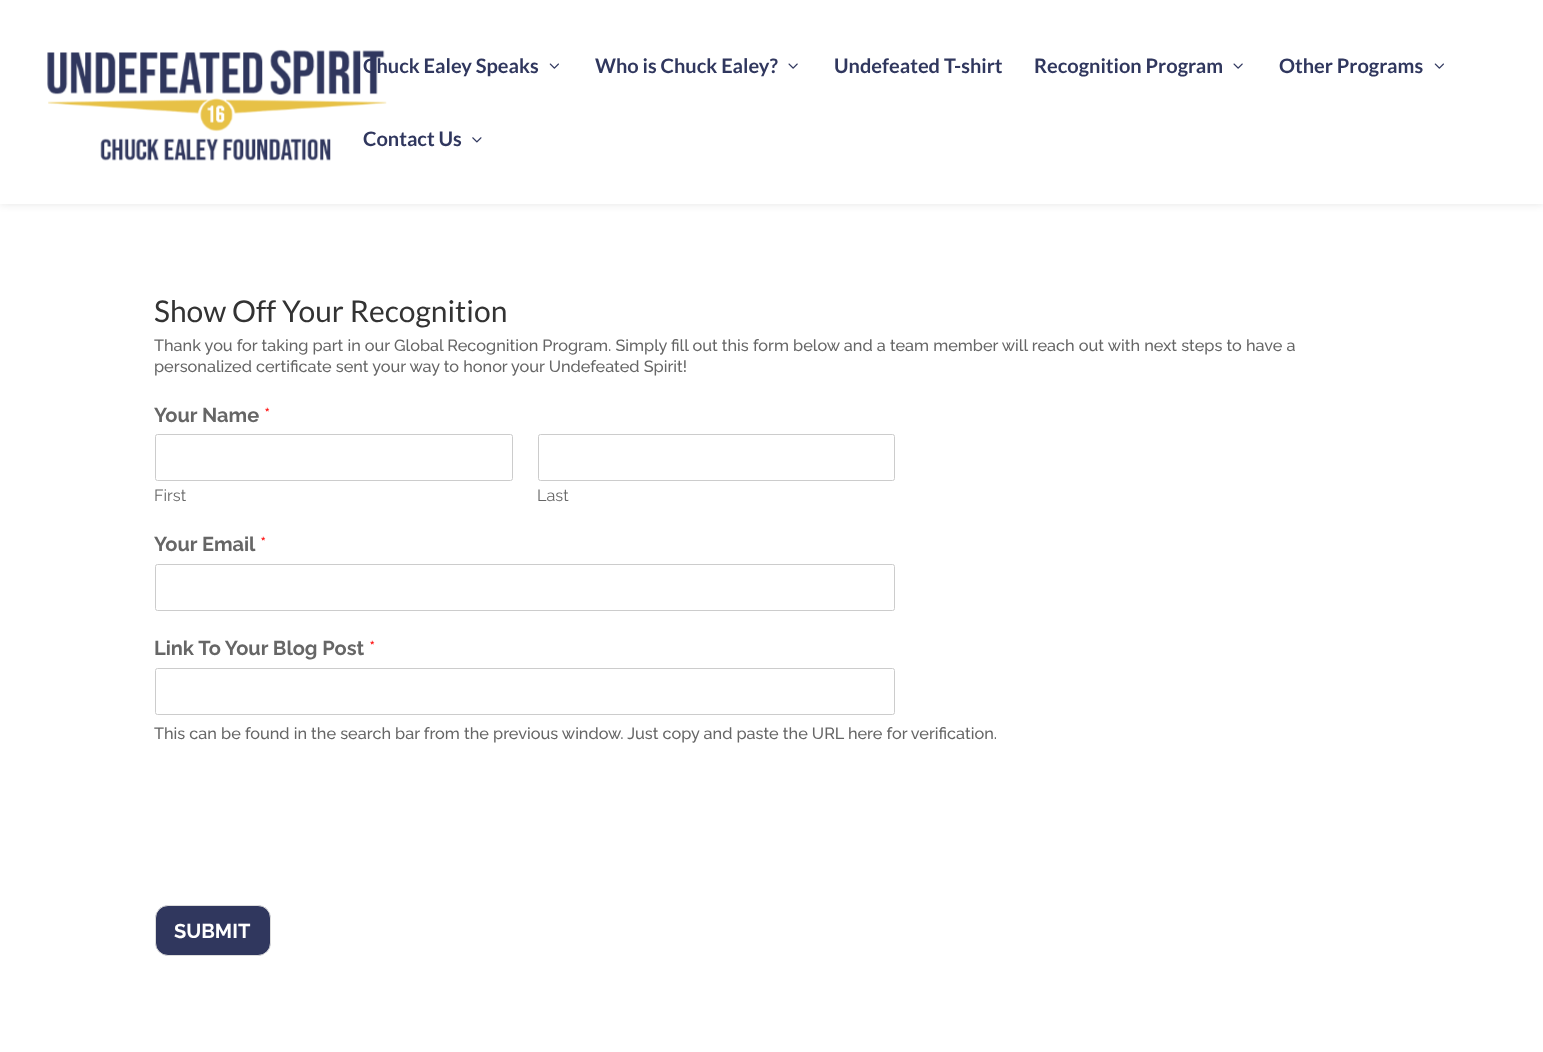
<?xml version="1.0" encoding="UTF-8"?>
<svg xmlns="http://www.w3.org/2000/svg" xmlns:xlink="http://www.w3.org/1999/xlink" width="1543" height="1052">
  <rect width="100%" height="100%" fill="#ffffff" />
  <rect width="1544" height="204" fill="#000000" fill-opacity="0.1" filter="blur(4.5px)" />
  <rect width="1543" height="204" fill="#ffffff" />
  <image x="47" y="49" width="340" height="112" xlink:href="image1.png" />
  <image x="549" y="63" width="10" height="6" xlink:href="image2.png" />
  <image x="788" y="63" width="10" height="6" xlink:href="image3.png" />
  <image x="1233" y="63" width="10" height="6" xlink:href="image3.png" />
  <image x="1434" y="63" width="10" height="6" xlink:href="image2.png" />
  <image x="472" y="137" width="10" height="6" xlink:href="image4.png" />
  <rect x="155.5" y="434.5" width="357" height="46" rx="2" fill="none" stroke="#cccccc" />
  <rect x="538.5" y="434.5" width="356" height="46" rx="2" fill="none" stroke="#cccccc" />
  <rect x="155.5" y="564.5" width="739" height="46" rx="2" fill="none" stroke="#cccccc" />
  <rect x="155.5" y="668.5" width="739" height="46" rx="2" fill="none" stroke="#cccccc" />
  <rect x="155.5" y="905.5" width="115" height="50" rx="12.5" fill="#30375e" stroke="#dddddd" />
  <text x="363" y="73" style="font-family: Lato; font-size: 20px; font-weight: bold; fill: #30375e">Chuck Ealey Speaks</text>
  <text x="595" y="73" style="font-family: Lato; font-size: 20px; font-weight: bold; fill: #30375e">Who is Chuck Ealey?</text>
  <text x="834" y="73" style="font-family: Lato; font-size: 20px; font-weight: bold; fill: #30375e">Undefeated T-shirt</text>
  <text x="1034" y="73" style="font-family: Lato; font-size: 20px; font-weight: bold; fill: #30375e">Recognition Program</text>
  <text x="1279" y="73" style="font-family: Lato; font-size: 20px; font-weight: bold; fill: #30375e">Other Programs</text>
  <text x="363" y="146" style="font-family: Lato; font-size: 20px; font-weight: bold; fill: #30375e">Contact Us</text>
  <text x="154" y="322" style="font-family: Lato; font-size: 30px; fill: #333333">Show Off Your Recognition</text>
  <text x="154" y="351" style="font-family: Raleway; font-size: 16.25px; font-weight: 100; fill: #666666">Thank you for taking part in our Global Recognition Program. Simply fill out this form below and a team member will reach out with next steps to have a</text>
  <text x="154" y="372" style="font-family: Raleway; font-size: 16.25px; font-weight: 100; fill: #666666">personalized certificate sent your way to honor your Undefeated Spirit!</text>
  <text x="154" y="422" style="font-family: 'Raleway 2'; font-size: 20px; font-weight: 100; fill: #666666">Your Name</text>
  <text x="264" y="422" style="font-family: 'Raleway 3'; font-size: 20px; font-weight: 100; fill: #ff0000">*</text>
  <text x="154" y="501" style="font-family: 'Raleway 3'; font-size: 16.25px; font-weight: 100; fill: #666666">First</text>
  <text x="537" y="501" style="font-family: 'Raleway 3'; font-size: 16.25px; font-weight: 100; fill: #666666">Last</text>
  <text x="154" y="551" style="font-family: 'Raleway 2'; font-size: 20px; font-weight: 100; fill: #666666">Your Email</text>
  <text x="260" y="551" style="font-family: 'Raleway 3'; font-size: 20px; font-weight: 100; fill: #ff0000">*</text>
  <text x="154" y="655" style="font-family: 'Raleway 2'; font-size: 20px; font-weight: 100; fill: #666666">Link To Your Blog Post</text>
  <text x="369" y="655" style="font-family: 'Raleway 3'; font-size: 20px; font-weight: 100; fill: #ff0000">*</text>
  <text x="154" y="739" style="font-family: Raleway; font-size: 16.25px; font-weight: 100; fill: #666666">This can be found in the search bar from the previous window. Just copy and paste the URL here for verification.</text>
  <text x="174" y="938" style="font-family: 'Raleway 2'; font-size: 20px; font-weight: 100; fill: #ffffff">SUBMIT</text>
</svg>
